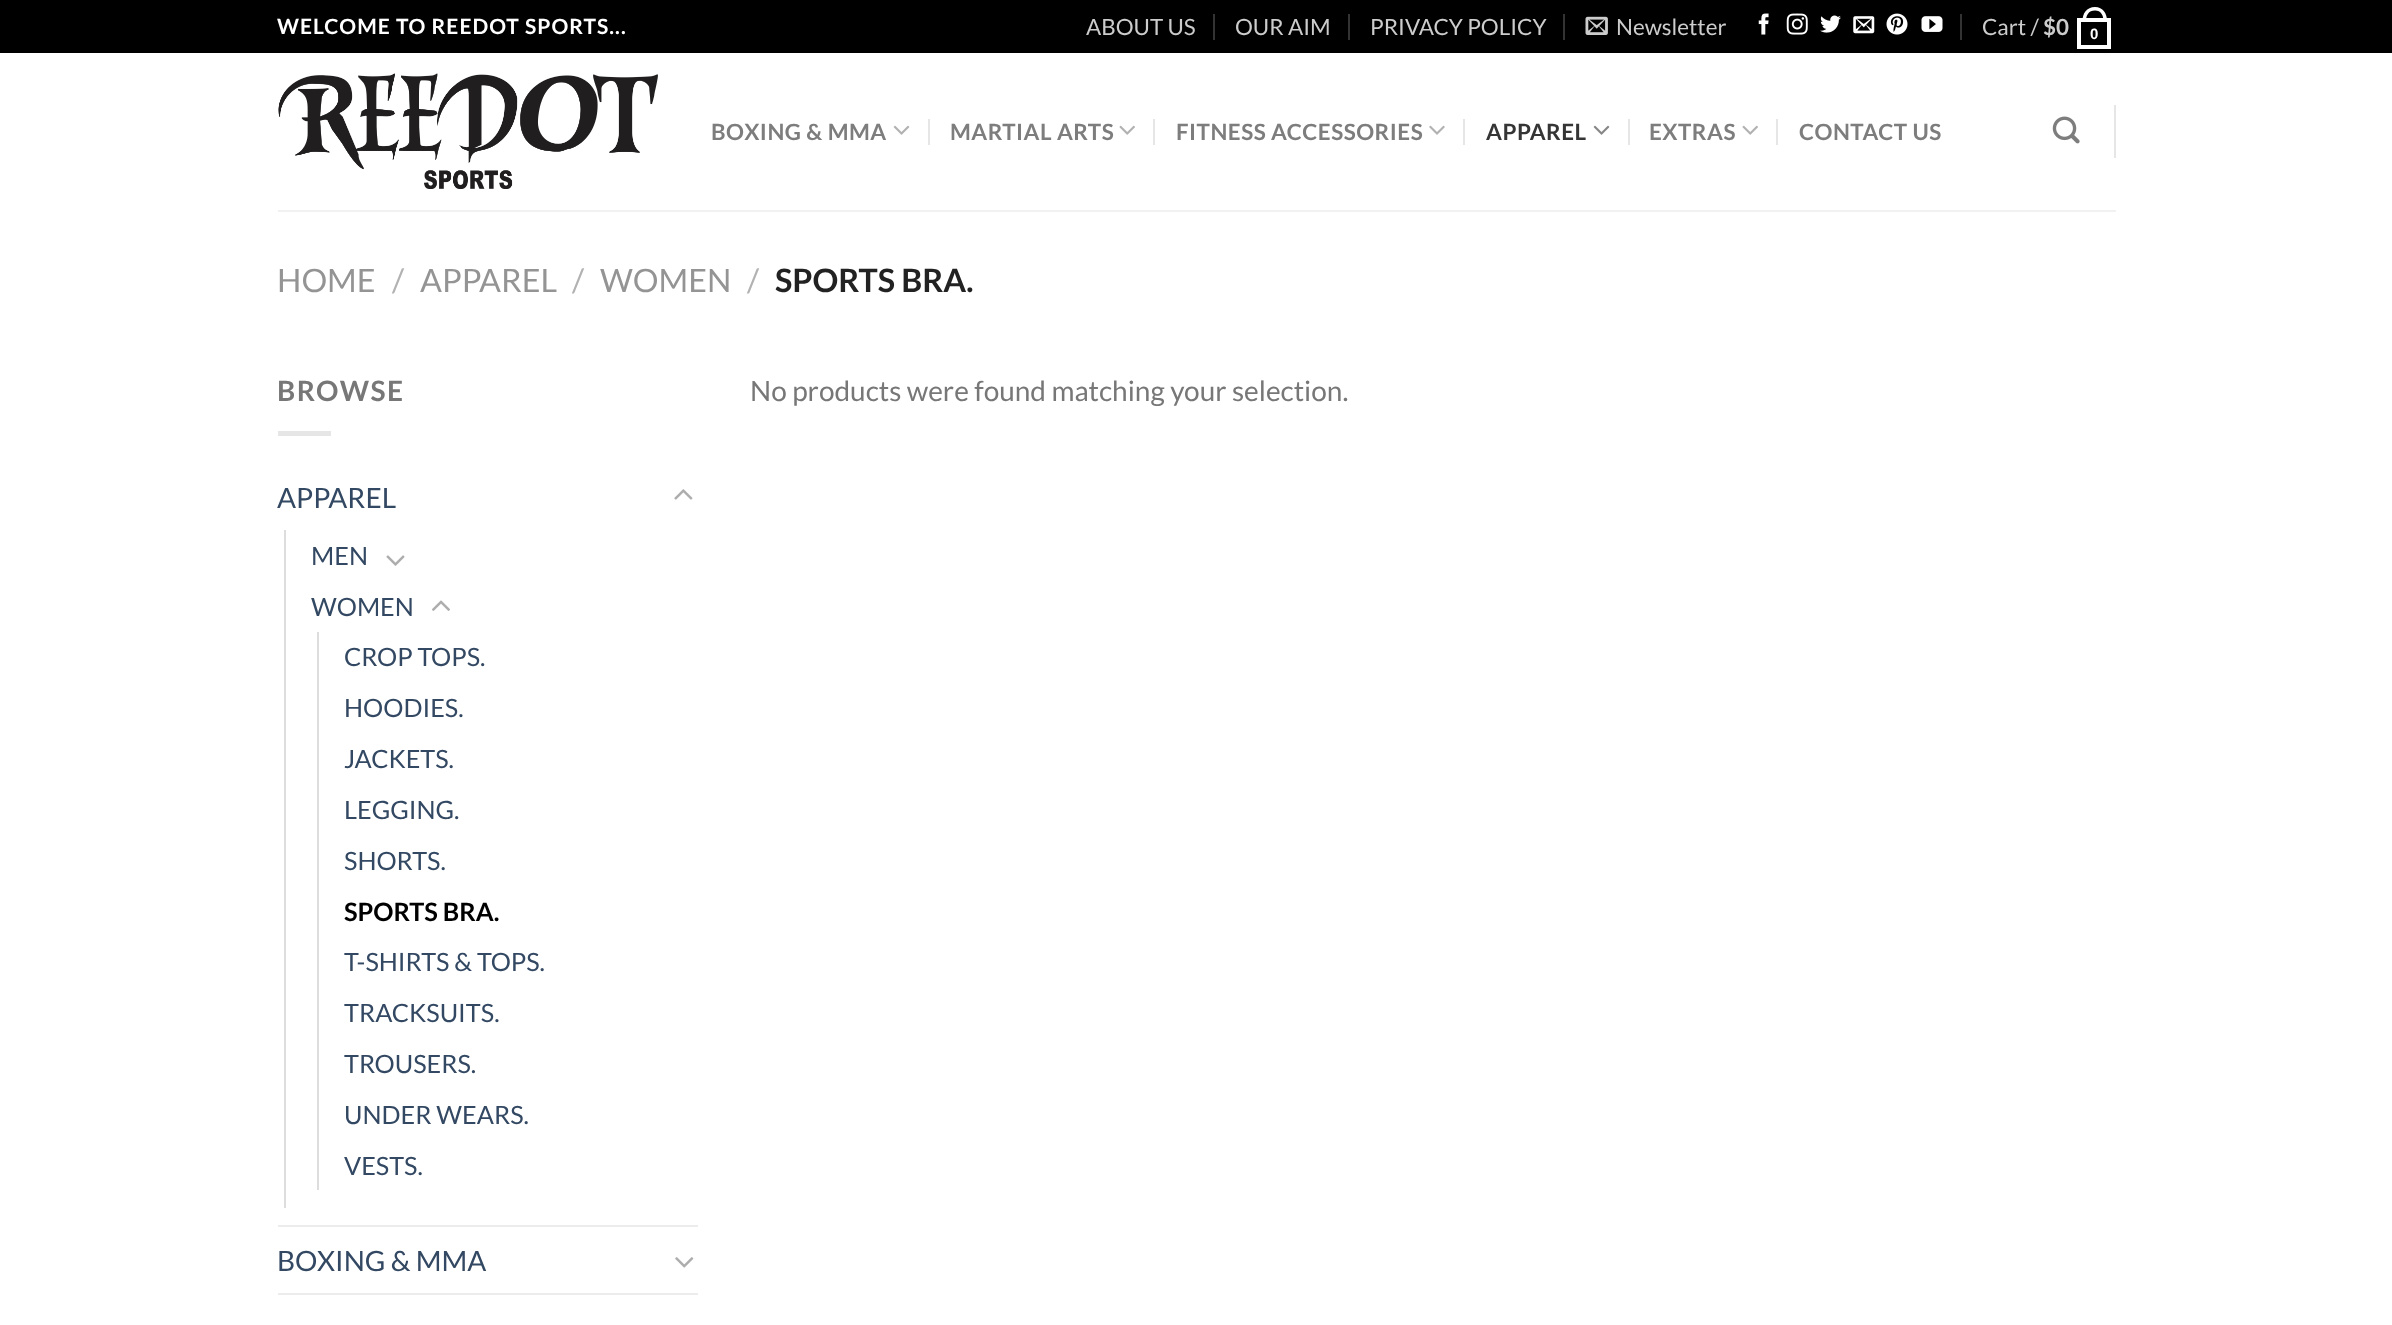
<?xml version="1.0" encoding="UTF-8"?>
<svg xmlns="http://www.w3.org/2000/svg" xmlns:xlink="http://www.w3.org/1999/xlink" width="2392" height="1325">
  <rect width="100%" height="100%" fill="#ffffff" />
  <rect width="2392" height="53" fill="#000000" />
  <rect x="1213" y="14" width="2" height="26" fill="#333333" />
  <rect x="1348" y="14" width="2" height="26" fill="#333333" />
  <rect x="1563" y="14" width="2" height="26" fill="#333333" />
  <image x="1585" y="16" width="23" height="19" xlink:href="image1.png" />
  <image x="1758" y="13" width="11" height="22" xlink:href="image2.png" />
  <image x="1786" y="13" width="22" height="22" xlink:href="image3.png" />
  <image x="1820" y="15" width="21" height="18" xlink:href="image4.png" />
  <image x="1853" y="16" width="22" height="18" xlink:href="image5.png" />
  <image x="1886" y="13" width="22" height="22" xlink:href="image6.png" />
  <image x="1921" y="16" width="22" height="16" xlink:href="image7.png" />
  <rect x="1960" y="14" width="2" height="26" fill="#333333" />
  <rect x="2079" y="20" width="30" height="27" fill="none" stroke="#ffffff" stroke-width="4" />
  <path d="M 2095 7 c 8 0 12 6.5 12 14 h -24.5 c 0 -7.5 4 -14 12.5 -14 z m 0 3.5 c 6 0 8.5 5 8.5 10.5 h -17.5 c 0 -5.5 2.5 -10.5 9 -10.5 z" fill="#ffffff" fill-rule="evenodd" />
  <image x="278" y="73" width="380" height="116" xlink:href="image8.png" />
  <image x="893" y="125" width="17" height="10" xlink:href="image9.png" />
  <rect x="928" y="119" width="2" height="26" fill="#e6e6e6" />
  <image x="1119" y="125" width="16" height="10" xlink:href="image10.png" />
  <rect x="1153" y="119" width="2" height="26" fill="#e6e6e6" />
  <image x="1429" y="125" width="16" height="10" xlink:href="image11.png" />
  <rect x="1463" y="119" width="2" height="26" fill="#e6e6e6" />
  <image x="1593" y="125" width="17" height="10" xlink:href="image12.png" />
  <rect x="1628" y="119" width="2" height="26" fill="#e6e6e6" />
  <image x="1742" y="125" width="16" height="10" xlink:href="image10.png" />
  <rect x="1776" y="119" width="2" height="26" fill="#e6e6e6" />
  <image x="2052" y="116" width="28" height="28" xlink:href="image13.png" />
  <rect x="2114" y="105" width="2" height="53" fill="#e6e6e6" />
  <rect x="278" y="210" width="1838" height="2" fill="#f1f1f1" />
  <rect x="278" y="431" width="53" height="5" fill="#e6e6e6" />
  <image x="674" y="489" width="19" height="11" xlink:href="image14.png" />
  <rect x="284" y="530" width="2" height="678" fill="#dddddd" />
  <image x="386" y="555" width="19" height="11" xlink:href="image15.png" />
  <image x="432" y="600" width="18" height="11" xlink:href="image16.png" />
  <rect x="317" y="632" width="2" height="558" fill="#dddddd" />
  <rect x="278" y="1225" width="420" height="2" fill="#ececec" />
  <image x="675" y="1257" width="19" height="11" xlink:href="image17.png" />
  <rect x="278" y="1293" width="420" height="2" fill="#ececec" />
  <text x="277" y="34" style="font-family: Lato; font-size: 21px; font-weight: bold; letter-spacing: 1.05px; fill: #ffffff">WELCOME TO REEDOT SPORTS...</text>
  <text x="1086" y="35" style="font-family: Lato; font-size: 22.4px; fill: #cccccc">ABOUT US</text>
  <text x="1235" y="35" style="font-family: Lato; font-size: 22.4px; fill: #cccccc">OUR AIM</text>
  <text x="1370" y="35" style="font-family: Lato; font-size: 22.4px; fill: #cccccc">PRIVACY POLICY</text>
  <text x="1616" y="35" style="font-family: Lato; font-size: 22.4px; fill: #cccccc">Newsletter</text>
  <text x="1982" y="35" style="font-family: Lato; font-size: 22.4px; fill: #cccccc">Cart /</text>
  <text x="2043" y="35" style="font-family: Lato; font-size: 22.4px; font-weight: bold; fill: #cccccc">$0</text>
  <text x="2090" y="39" style="font-family: Liberation Sans; font-size: 15px; font-weight: bold; fill: #ffffff">0</text>
  <text x="711" y="140" style="font-family: Lato; font-size: 22.4px; font-weight: bold; letter-spacing: 0.5px; fill: #7d7d7d">BOXING &amp; MMA</text>
  <text x="950" y="140" style="font-family: Lato; font-size: 22.4px; font-weight: bold; letter-spacing: 0.5px; fill: #7d7d7d">MARTIAL ARTS</text>
  <text x="1176" y="140" style="font-family: Lato; font-size: 22.4px; font-weight: bold; letter-spacing: 0.5px; fill: #7d7d7d">FITNESS ACCESSORIES</text>
  <text x="1486" y="140" style="font-family: Lato; font-size: 22.4px; font-weight: bold; letter-spacing: 0.5px; fill: #353535">APPAREL</text>
  <text x="1649" y="140" style="font-family: Lato; font-size: 22.4px; font-weight: bold; letter-spacing: 0.5px; fill: #7d7d7d">EXTRAS</text>
  <text x="1799" y="140" style="font-family: Lato; font-size: 22.4px; font-weight: bold; letter-spacing: 0.5px; fill: #7d7d7d">CONTACT US</text>
  <text x="277" y="292" style="font-family: Lato; font-size: 32.25px; fill: #949494">HOME</text>
  <text x="392" y="292" style="font-family: Lato; font-size: 32.25px; fill: #b2b2b2">/</text>
  <text x="420" y="292" style="font-family: Lato; font-size: 32.25px; fill: #949494">APPAREL</text>
  <text x="572" y="292" style="font-family: Lato; font-size: 32.25px; fill: #b2b2b2">/</text>
  <text x="600" y="292" style="font-family: Lato; font-size: 32.25px; fill: #949494">WOMEN</text>
  <text x="747" y="292" style="font-family: Lato; font-size: 32.25px; fill: #b2b2b2">/</text>
  <text x="775" y="292" style="font-family: Lato; font-size: 32.25px; font-weight: bold; fill: #222222">SPORTS BRA.</text>
  <text x="277" y="401" style="font-family: Lato; font-size: 28px; font-weight: bold; letter-spacing: 1.5px; fill: #777777">BROWSE</text>
  <text x="277" y="508" style="font-family: Lato; font-size: 28px; fill: #334862">APPAREL</text>
  <text x="311" y="565" style="font-family: Lato; font-size: 25.25px; fill: #334862">MEN</text>
  <text x="311" y="616" style="font-family: Lato; font-size: 25.25px; fill: #334862">WOMEN</text>
  <text x="344" y="666" style="font-family: Lato; font-size: 25.25px; fill: #334862">CROP TOPS.</text>
  <text x="344" y="717" style="font-family: Lato; font-size: 25.25px; fill: #334862">HOODIES.</text>
  <text x="344" y="768" style="font-family: Lato; font-size: 25.25px; fill: #334862">JACKETS.</text>
  <text x="344" y="819" style="font-family: Lato; font-size: 25.25px; fill: #334862">LEGGING.</text>
  <text x="344" y="870" style="font-family: Lato; font-size: 25.25px; fill: #334862">SHORTS.</text>
  <text x="344" y="921" style="font-family: Lato; font-size: 25.25px; font-weight: bold; fill: #000000">SPORTS BRA.</text>
  <text x="344" y="971" style="font-family: Lato; font-size: 25.25px; fill: #334862">T-SHIRTS &amp; TOPS.</text>
  <text x="344" y="1022" style="font-family: Lato; font-size: 25.25px; fill: #334862">TRACKSUITS.</text>
  <text x="344" y="1073" style="font-family: Lato; font-size: 25.25px; fill: #334862">TROUSERS.</text>
  <text x="344" y="1124" style="font-family: Lato; font-size: 25.25px; fill: #334862">UNDER WEARS.</text>
  <text x="344" y="1175" style="font-family: Lato; font-size: 25.25px; fill: #334862">VESTS.</text>
  <text x="277" y="1271" style="font-family: Lato; font-size: 28px; fill: #334862">BOXING &amp; MMA</text>
  <text x="750" y="401" style="font-family: Lato; font-size: 28px; fill: #777777">No products were found matching your selection.</text>
</svg>
